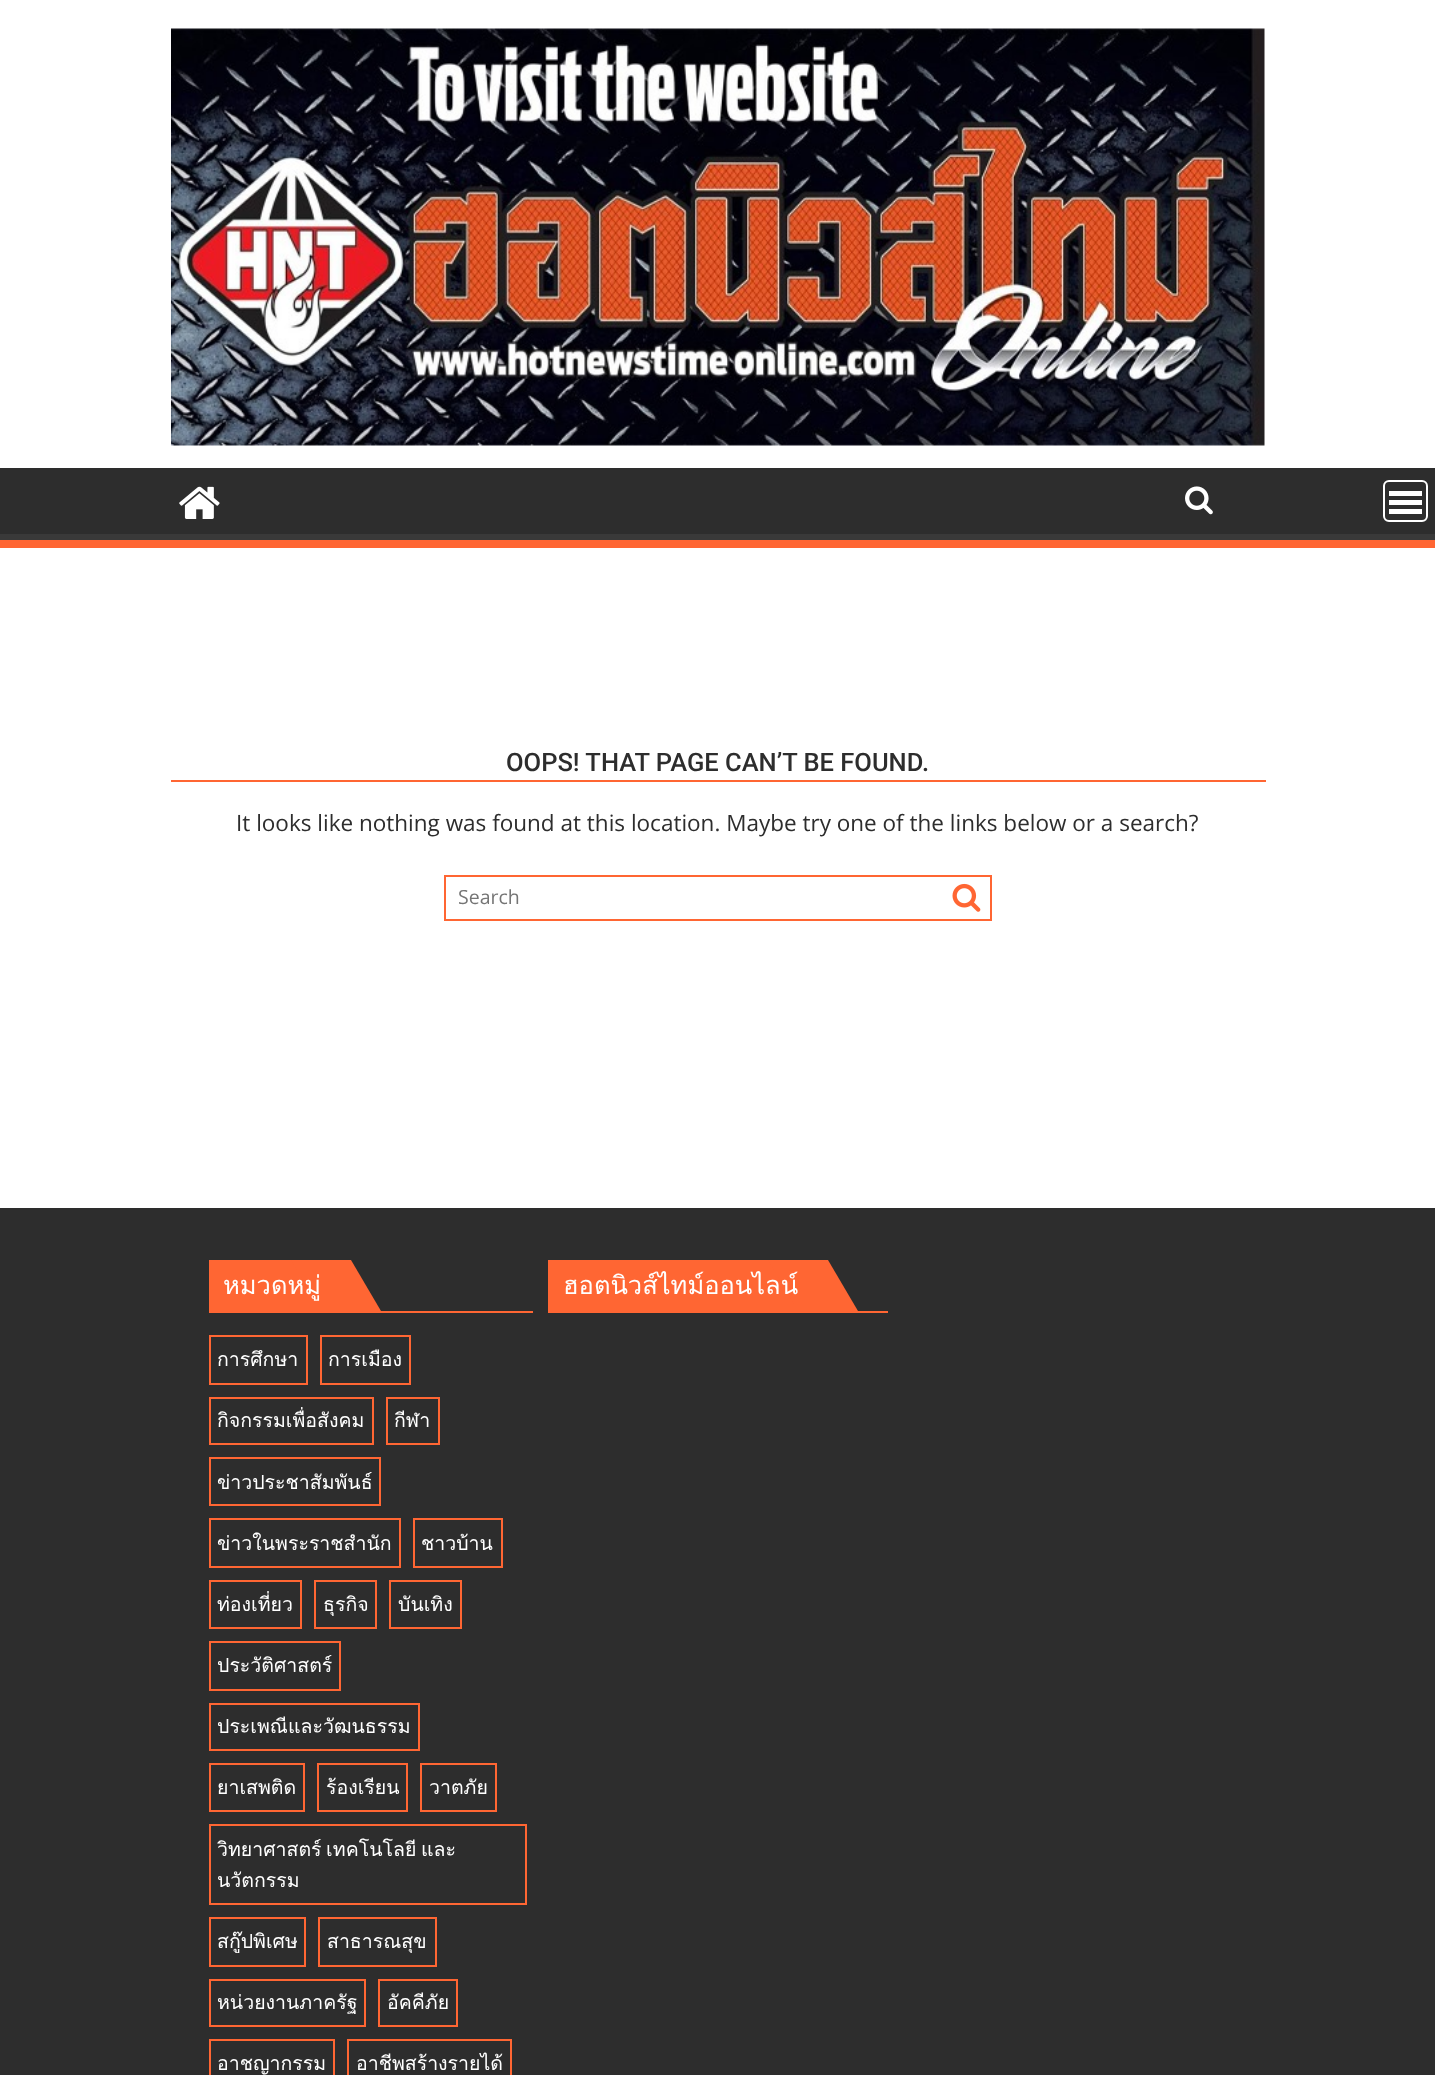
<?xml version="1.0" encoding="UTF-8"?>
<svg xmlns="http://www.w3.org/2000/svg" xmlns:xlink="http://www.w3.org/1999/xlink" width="1435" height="2075">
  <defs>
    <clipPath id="clip1"><rect y="468" width="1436" height="72" /></clipPath>
  </defs>
  <rect width="100%" height="100%" fill="#ffffff" />
  <image x="171" y="28" width="1094" height="418" xlink:href="image1.png" />
  <rect y="468" width="1435" height="66" fill="#2d2d2d" />
  <g clip-path="url(#clip1)">
    <path d="M -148 320 h 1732 v 368 h -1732 z m 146 139 h 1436 c 1 0 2 1 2 1 v 72 c 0 1 -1 2 -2 2 h -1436 c 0 0 -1 -1 -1 -2 v -72 c 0 0 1 -1 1 -1 z" fill="#393939" fill-rule="evenodd" />
  </g>
  <rect y="540" width="1435" height="8" fill="#ff6633" />
  <image x="179" y="486" width="41" height="33" xlink:href="image2.png" />
  <image x="1185" y="486" width="28" height="29" xlink:href="image3.png" />
  <rect x="1384" y="481" width="43" height="40" rx="5" fill="none" stroke="#ffffff" stroke-width="2" />
  <rect x="1389" y="509" width="33" height="5" fill="#ffffff" />
  <rect x="1389" y="500" width="33" height="5" fill="#ffffff" />
  <rect x="1389" y="491" width="33" height="5" fill="#ffffff" />
  <rect x="171" y="780" width="1095" height="2" fill="#ff6633" />
  <rect x="445" y="876" width="546" height="44" fill="none" stroke="#ff6633" stroke-width="2" />
  <image x="952" y="883" width="29" height="29" xlink:href="image4.png" />
  <rect y="1208" width="1435" height="867" fill="#2d2d2d" />
  <rect x="209" y="1311" width="324" height="2" fill="#ff6633" />
  <rect x="209" y="1260" width="112" height="51" fill="#ff6633" />
  <path d="M 291 1260 h 60 l 30 51 h -60 z" fill="#ff6633" />
  <rect x="210" y="1336" width="97" height="48" fill="none" stroke="#ff6633" stroke-width="2" />
  <rect x="321" y="1336" width="89" height="48" fill="none" stroke="#ff6633" stroke-width="2" />
  <rect x="210" y="1398" width="163" height="46" fill="none" stroke="#ff6633" stroke-width="2" />
  <rect x="387" y="1398" width="52" height="46" fill="none" stroke="#ff6633" stroke-width="2" />
  <rect x="210" y="1458" width="170" height="47" fill="none" stroke="#ff6633" stroke-width="2" />
  <rect x="210" y="1519" width="190" height="48" fill="none" stroke="#ff6633" stroke-width="2" />
  <rect x="414" y="1519" width="88" height="48" fill="none" stroke="#ff6633" stroke-width="2" />
  <rect x="210" y="1581" width="91" height="47" fill="none" stroke="#ff6633" stroke-width="2" />
  <rect x="315" y="1581" width="61" height="47" fill="none" stroke="#ff6633" stroke-width="2" />
  <rect x="390" y="1581" width="71" height="47" fill="none" stroke="#ff6633" stroke-width="2" />
  <rect x="210" y="1642" width="130" height="48" fill="none" stroke="#ff6633" stroke-width="2" />
  <rect x="210" y="1704" width="209" height="46" fill="none" stroke="#ff6633" stroke-width="2" />
  <rect x="210" y="1764" width="94" height="47" fill="none" stroke="#ff6633" stroke-width="2" />
  <rect x="318" y="1764" width="89" height="47" fill="none" stroke="#ff6633" stroke-width="2" />
  <rect x="421" y="1764" width="75" height="47" fill="none" stroke="#ff6633" stroke-width="2" />
  <rect x="210" y="1825" width="316" height="79" fill="none" stroke="#ff6633" stroke-width="2" />
  <rect x="210" y="1918" width="95" height="48" fill="none" stroke="#ff6633" stroke-width="2" />
  <rect x="319" y="1918" width="117" height="48" fill="none" stroke="#ff6633" stroke-width="2" />
  <rect x="210" y="1980" width="155" height="46" fill="none" stroke="#ff6633" stroke-width="2" />
  <rect x="379" y="1980" width="78" height="46" fill="none" stroke="#ff6633" stroke-width="2" />
  <rect x="210" y="2040" width="124" height="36" fill="none" stroke="#ff6633" stroke-width="2" />
  <rect x="348" y="2040" width="163" height="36" fill="none" stroke="#ff6633" stroke-width="2" />
  <rect x="548" y="1311" width="340" height="2" fill="#ff6633" />
  <rect x="548" y="1260" width="250" height="51" fill="#ff6633" />
  <path d="M 768 1260 h 60 l 30 51 h -60 z" fill="#ff6633" />
  <text x="506" y="771" style="font-family: Roboto; font-size: 25.5px; font-weight: 500; fill: #2d2d2d">OOPS! THAT PAGE CAN’T BE FOUND.</text>
  <text x="236" y="831" style="font-family: Open Sans; font-size: 22.5px; fill: #2d2d2d">It looks like nothing was found at this location. Maybe try one of the links below or a search?</text>
  <text x="458" y="904" style="font-family: Open Sans; font-size: 19.5px; fill: #757575">Search</text>
  <text x="223" y="1294" style="font-family: Loma; font-size: 25.5px; fill: #ffffff">หมวดหมู่</text>
  <text x="217" y="1366" style="font-family: Loma; font-size: 19.5px; fill: #ffffff">การศึกษา</text>
  <text x="328" y="1366" style="font-family: Loma; font-size: 19.5px; fill: #ffffff">การเมือง</text>
  <text x="217" y="1427" style="font-family: Loma; font-size: 19.5px; fill: #ffffff">กิจกรรมเพื่อสังคม</text>
  <text x="394" y="1427" style="font-family: Loma; font-size: 19.5px; fill: #ffffff">กีฬา</text>
  <text x="217" y="1489" style="font-family: Loma; font-size: 19.5px; fill: #ffffff">ข่าวประชาสัมพันธ์</text>
  <text x="217" y="1550" style="font-family: Loma; font-size: 19.5px; fill: #ffffff">ข่าวในพระราชสำนัก</text>
  <text x="421" y="1550" style="font-family: Loma; font-size: 19.5px; fill: #ffffff">ชาวบ้าน</text>
  <text x="217" y="1611" style="font-family: Loma; font-size: 19.5px; fill: #ffffff">ท่องเที่ยว</text>
  <text x="323" y="1611" style="font-family: Loma; font-size: 19.5px; fill: #ffffff">ธุรกิจ</text>
  <text x="398" y="1611" style="font-family: Loma; font-size: 19.5px; fill: #ffffff">บันเทิง</text>
  <text x="217" y="1672" style="font-family: Loma; font-size: 19.5px; fill: #ffffff">ประวัติศาสตร์</text>
  <text x="217" y="1733" style="font-family: Loma; font-size: 19.5px; fill: #ffffff">ประเพณีและวัฒนธรรม</text>
  <text x="217" y="1794" style="font-family: Loma; font-size: 19.5px; fill: #ffffff">ยาเสพติด</text>
  <text x="326" y="1794" style="font-family: Loma; font-size: 19.5px; fill: #ffffff">ร้องเรียน</text>
  <text x="429" y="1794" style="font-family: Loma; font-size: 19.5px; fill: #ffffff">วาตภัย</text>
  <text x="217" y="1856" word-spacing="-2" style="font-family: Loma; font-size: 19.5px; fill: #ffffff">วิทยาศาสตร์ เทคโนโลยี และ</text>
  <text x="217" y="1887" style="font-family: Loma; font-size: 19.5px; fill: #ffffff">นวัตกรรม</text>
  <text x="217" y="1948" style="font-family: Loma; font-size: 19.5px; fill: #ffffff">สกู๊ปพิเศษ</text>
  <text x="327" y="1948" style="font-family: Loma; font-size: 19.5px; fill: #ffffff">สาธารณสุข</text>
  <text x="217" y="2009" style="font-family: Loma; font-size: 19.5px; fill: #ffffff">หน่วยงานภาครัฐ</text>
  <text x="387" y="2009" style="font-family: Loma; font-size: 19.5px; fill: #ffffff">อัคคีภัย</text>
  <text x="217" y="2070" style="font-family: Loma; font-size: 19.5px; fill: #ffffff">อาชญากรรม</text>
  <text x="356" y="2070" style="font-family: Loma; font-size: 19.5px; fill: #ffffff">อาชีพสร้างรายได้</text>
  <text x="563" y="1294" style="font-family: Loma; font-size: 25.5px; fill: #ffffff">ฮอตนิวส์ไทม์ออนไลน์</text>
</svg>
